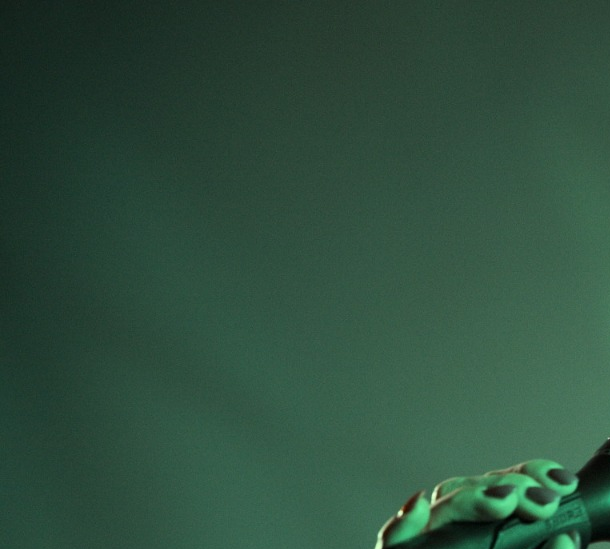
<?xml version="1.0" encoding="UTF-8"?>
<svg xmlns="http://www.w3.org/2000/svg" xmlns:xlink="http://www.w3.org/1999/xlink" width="610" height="549">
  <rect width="100%" height="100%" fill="#ffffff" />
  <image x="0" y="0" width="610" height="549" xlink:href="image1.png" />
</svg>
